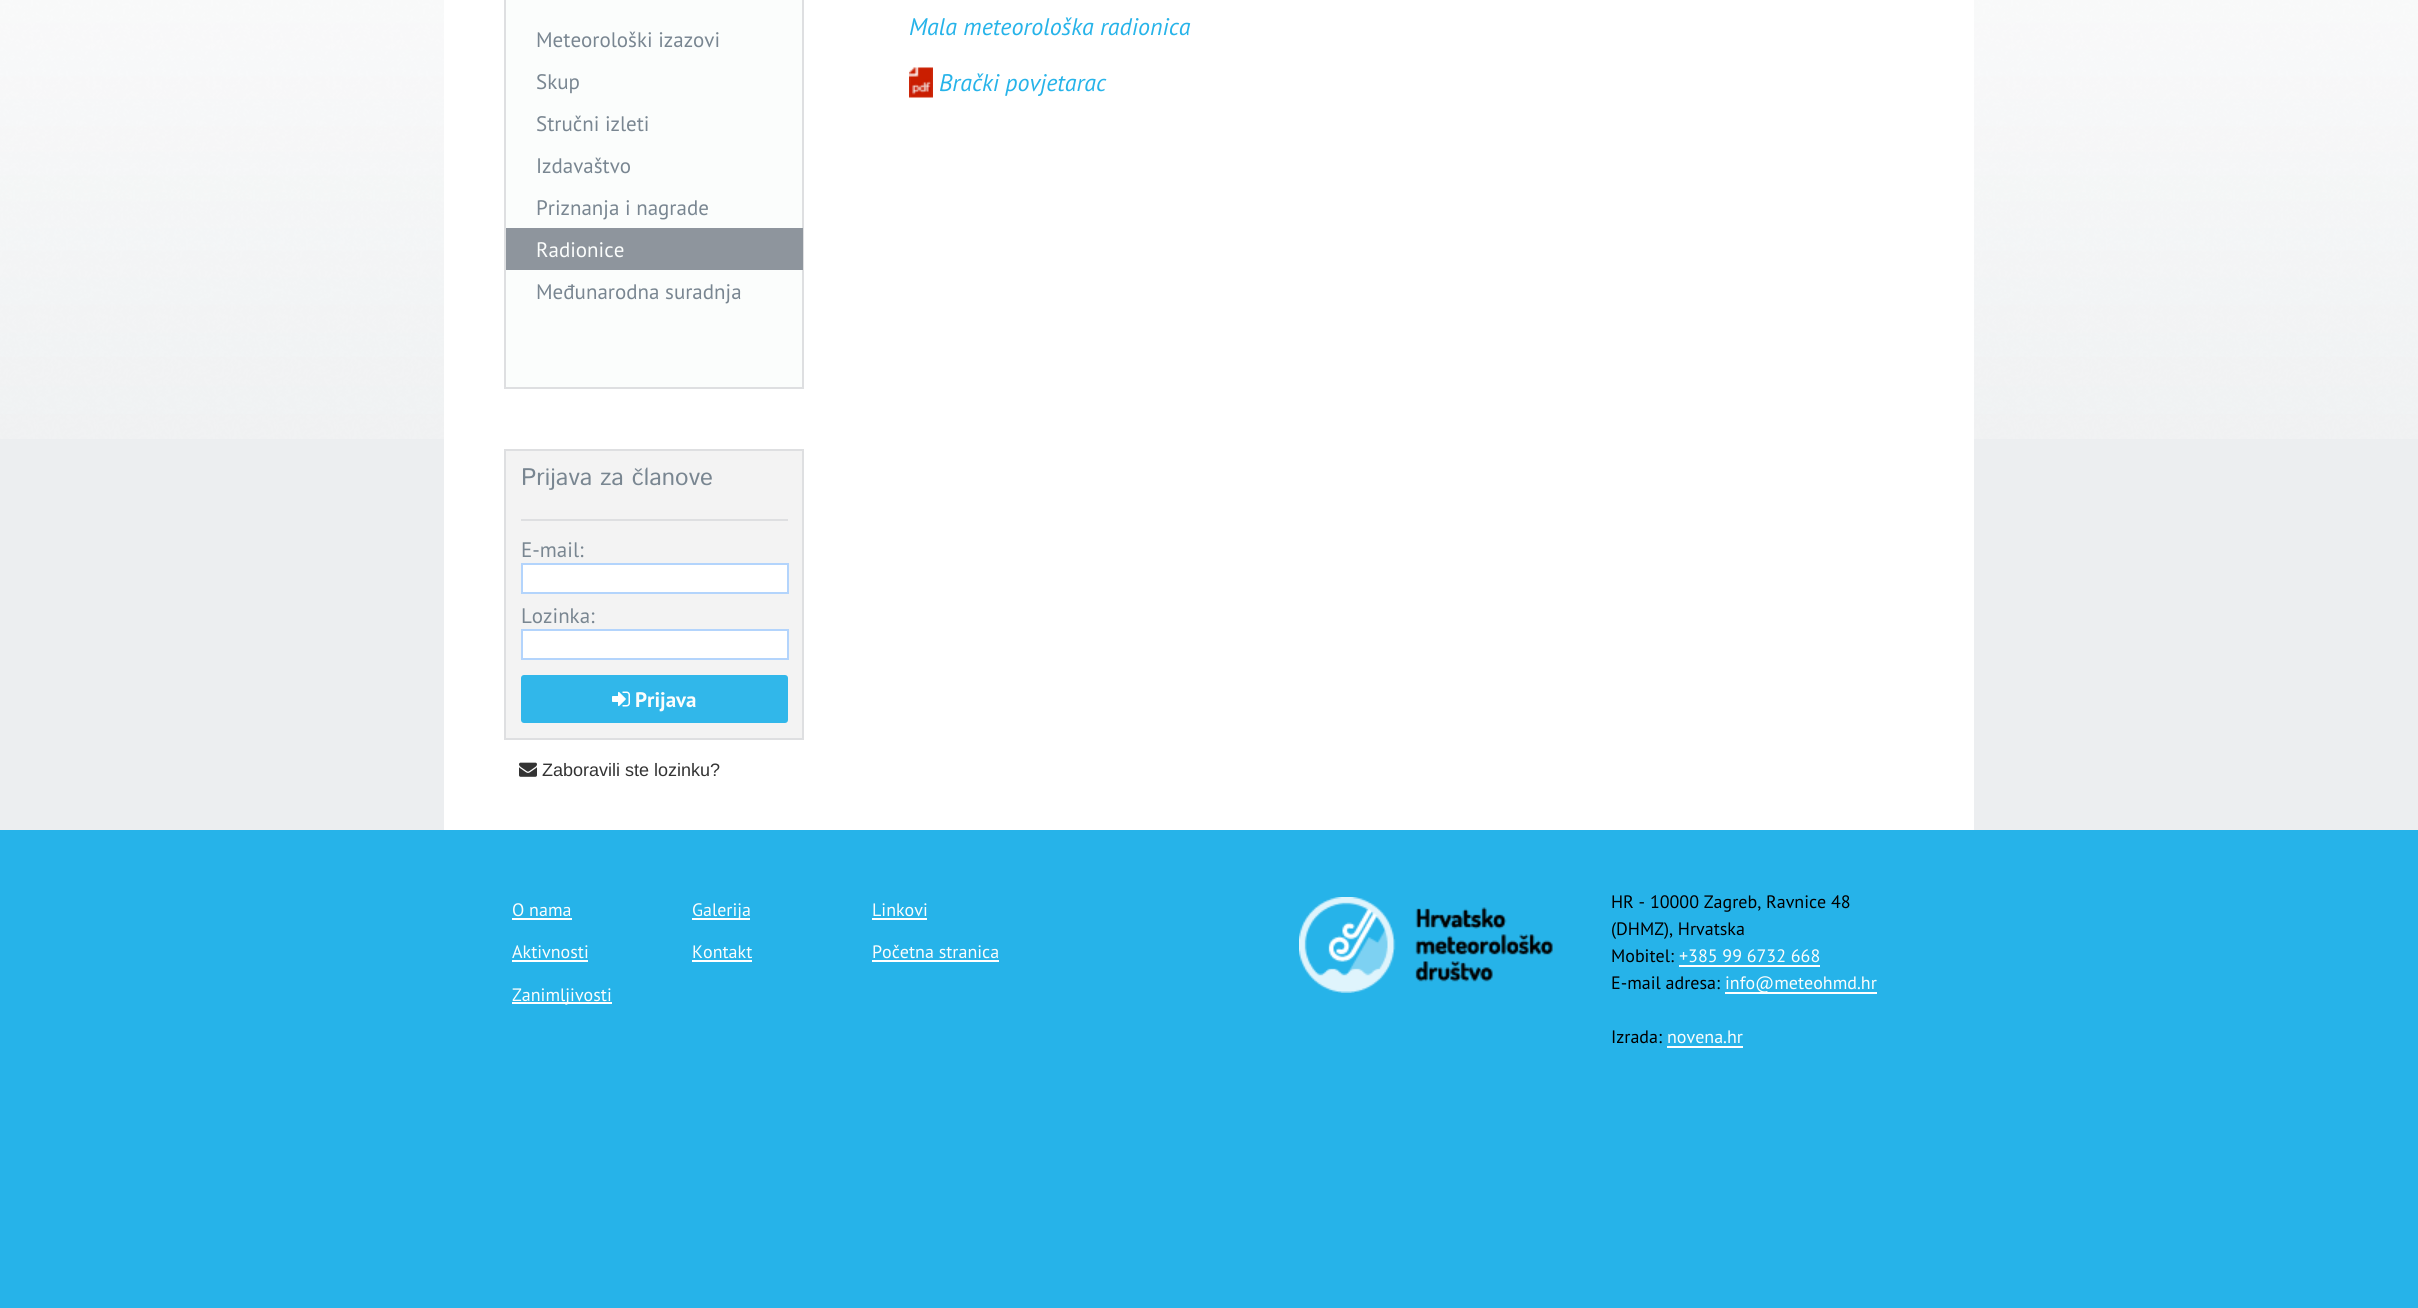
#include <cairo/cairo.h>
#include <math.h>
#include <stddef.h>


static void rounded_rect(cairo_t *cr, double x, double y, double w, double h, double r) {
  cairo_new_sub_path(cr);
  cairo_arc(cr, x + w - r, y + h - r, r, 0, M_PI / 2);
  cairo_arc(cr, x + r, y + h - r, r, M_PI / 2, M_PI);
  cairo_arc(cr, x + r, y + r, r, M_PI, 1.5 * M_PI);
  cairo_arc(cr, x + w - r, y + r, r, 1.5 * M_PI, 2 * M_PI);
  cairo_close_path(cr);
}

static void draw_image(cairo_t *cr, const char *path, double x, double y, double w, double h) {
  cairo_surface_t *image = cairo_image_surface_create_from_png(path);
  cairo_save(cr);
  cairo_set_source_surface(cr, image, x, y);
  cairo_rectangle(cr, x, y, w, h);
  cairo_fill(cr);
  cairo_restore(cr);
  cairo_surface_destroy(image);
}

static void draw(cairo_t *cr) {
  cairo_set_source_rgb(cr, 236 / 255.0, 238 / 255.0, 240 / 255.0);
  cairo_paint(cr);
  draw_image(cr, "images/1.png", 0, 0, 2418, 439);
  cairo_set_source_rgb(cr, 1, 1, 1);
  cairo_rectangle(cr, 444, 0, 1530, 830);
  cairo_fill(cr);
  cairo_set_source_rgb(cr, 251 / 255.0, 253 / 255.0, 252 / 255.0);
  cairo_rectangle(cr, 505, -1, 298, 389);
  cairo_fill_preserve(cr);
  cairo_set_source_rgb(cr, 222 / 255.0, 223 / 255.0, 225 / 255.0);
  cairo_stroke(cr);
  cairo_set_source_rgb(cr, 142 / 255.0, 149 / 255.0, 157 / 255.0);
  cairo_rectangle(cr, 506, 228, 297, 42);
  cairo_fill(cr);
  cairo_set_source_rgb(cr, 243 / 255.0, 243 / 255.0, 243 / 255.0);
  cairo_rectangle(cr, 505, 450, 298, 289);
  cairo_fill_preserve(cr);
  cairo_set_source_rgb(cr, 222 / 255.0, 223 / 255.0, 225 / 255.0);
  cairo_stroke(cr);
  cairo_rectangle(cr, 521, 519, 267, 2);
  cairo_fill(cr);
  cairo_set_source_rgb(cr, 1, 1, 1);
  cairo_rectangle(cr, 522, 564, 266, 29);
  cairo_fill_preserve(cr);
  cairo_set_source_rgb(cr, 179 / 255.0, 212 / 255.0, 252 / 255.0);
  cairo_stroke(cr);
  cairo_set_source_rgb(cr, 1, 1, 1);
  cairo_rectangle(cr, 522, 630, 266, 29);
  cairo_fill_preserve(cr);
  cairo_set_source_rgb(cr, 179 / 255.0, 212 / 255.0, 252 / 255.0);
  cairo_stroke(cr);
  cairo_set_source_rgb(cr, 49 / 255.0, 183 / 255.0, 234 / 255.0);
  rounded_rect(cr, 521, 675, 267, 48, 3);
  cairo_fill(cr);
  draw_image(cr, "images/2.png", 612, 691, 18, 16);
  draw_image(cr, "images/3.png", 519, 762, 18, 15);
  draw_image(cr, "images/4.png", 909, 67, 24, 31);
  cairo_set_source_rgb(cr, 38 / 255.0, 179 / 255.0, 233 / 255.0);
  cairo_rectangle(cr, 0, 830, 2418, 478);
  cairo_fill(cr);
  cairo_set_source_rgb(cr, 1, 1, 1);
  cairo_rectangle(cr, 512, 918, 60, 2);
  cairo_fill(cr);
  cairo_rectangle(cr, 692, 918, 58, 2);
  cairo_fill(cr);
  cairo_rectangle(cr, 872, 918, 55, 2);
  cairo_fill(cr);
  cairo_rectangle(cr, 512, 960, 76, 2);
  cairo_fill(cr);
  cairo_rectangle(cr, 692, 960, 60, 2);
  cairo_fill(cr);
  cairo_rectangle(cr, 872, 960, 127, 2);
  cairo_fill(cr);
  cairo_rectangle(cr, 512, 1002, 100, 2);
  cairo_fill(cr);
  draw_image(cr, "images/5.png", 1299, 897, 254, 96);
  cairo_rectangle(cr, 1679, 965, 141, 2);
  cairo_fill(cr);
  cairo_rectangle(cr, 1725, 992, 152, 2);
  cairo_fill(cr);
  cairo_rectangle(cr, 1667, 1046, 76, 2);
  cairo_fill(cr);
  cairo_select_font_face(cr, "PT Sans", CAIRO_FONT_SLANT_NORMAL, CAIRO_FONT_WEIGHT_NORMAL);
  cairo_set_font_size(cr, 21);
  cairo_set_source_rgb(cr, 121 / 255.0, 134 / 255.0, 145 / 255.0);
  cairo_move_to(cr, 536, 47);
  cairo_show_text(cr, "Meteorološki izazovi");
  cairo_move_to(cr, 536, 89);
  cairo_show_text(cr, "Skup");
  cairo_move_to(cr, 536, 131);
  cairo_show_text(cr, "Stručni izleti");
  cairo_move_to(cr, 536, 173);
  cairo_show_text(cr, "Izdavaštvo");
  cairo_move_to(cr, 536, 215);
  cairo_show_text(cr, "Priznanja i nagrade");
  cairo_set_source_rgb(cr, 251 / 255.0, 253 / 255.0, 252 / 255.0);
  cairo_move_to(cr, 536, 257);
  cairo_show_text(cr, "Radionice");
  cairo_set_source_rgb(cr, 121 / 255.0, 134 / 255.0, 145 / 255.0);
  cairo_move_to(cr, 536, 299);
  cairo_show_text(cr, "Međunarodna suradnja");
  cairo_select_font_face(cr, "Istok Web", CAIRO_FONT_SLANT_NORMAL, CAIRO_FONT_WEIGHT_NORMAL);
  cairo_set_font_size(cr, 24);
  cairo_move_to(cr, 521, 485);
  cairo_show_text(cr, "Prijava za članove");
  cairo_select_font_face(cr, "PT Sans", CAIRO_FONT_SLANT_NORMAL, CAIRO_FONT_WEIGHT_NORMAL);
  cairo_set_font_size(cr, 21);
  cairo_move_to(cr, 521, 557);
  cairo_show_text(cr, "E-mail:");
  cairo_move_to(cr, 521, 623);
  cairo_show_text(cr, "Lozinka:");
  cairo_select_font_face(cr, "PT Sans", CAIRO_FONT_SLANT_NORMAL, CAIRO_FONT_WEIGHT_BOLD);
  cairo_set_source_rgb(cr, 251 / 255.0, 253 / 255.0, 252 / 255.0);
  cairo_move_to(cr, 635, 707);
  cairo_show_text(cr, "Prijava");
  cairo_select_font_face(cr, "Liberation Sans", CAIRO_FONT_SLANT_NORMAL, CAIRO_FONT_WEIGHT_NORMAL);
  cairo_set_font_size(cr, 18);
  cairo_set_source_rgb(cr, 51 / 255.0, 51 / 255.0, 51 / 255.0);
  cairo_move_to(cr, 542, 776);
  cairo_show_text(cr, "Zaboravili ste lozinku?");
  cairo_select_font_face(cr, "PT Sans", CAIRO_FONT_SLANT_ITALIC, CAIRO_FONT_WEIGHT_NORMAL);
  cairo_set_font_size(cr, 24);
  cairo_set_source_rgb(cr, 38 / 255.0, 179 / 255.0, 233 / 255.0);
  cairo_move_to(cr, 909, 35);
  cairo_show_text(cr, "Mala meteorološka radionica");
  cairo_move_to(cr, 939, 91);
  cairo_show_text(cr, "Brački povjetarac");
  cairo_select_font_face(cr, "PT Sans", CAIRO_FONT_SLANT_NORMAL, CAIRO_FONT_WEIGHT_NORMAL);
  cairo_set_font_size(cr, 18);
  cairo_set_source_rgb(cr, 251 / 255.0, 253 / 255.0, 252 / 255.0);
  cairo_move_to(cr, 512, 916);
  cairo_show_text(cr, "O nama");
  cairo_move_to(cr, 692, 916);
  cairo_show_text(cr, "Galerija");
  cairo_move_to(cr, 872, 916);
  cairo_show_text(cr, "Linkovi");
  cairo_move_to(cr, 512, 958);
  cairo_show_text(cr, "Aktivnosti");
  cairo_move_to(cr, 692, 958);
  cairo_show_text(cr, "Kontakt");
  cairo_move_to(cr, 872, 958);
  cairo_show_text(cr, "Početna stranica");
  cairo_move_to(cr, 512, 1001);
  cairo_show_text(cr, "Zanimljivosti");
  cairo_set_source_rgb(cr, 0, 0, 0);
  cairo_move_to(cr, 1611, 908);
  cairo_show_text(cr, "HR - 10000 Zagreb, Ravnice 48");
  cairo_move_to(cr, 1611, 935);
  cairo_show_text(cr, "(DHMZ), Hrvatska");
  cairo_move_to(cr, 1611, 962);
  cairo_show_text(cr, "Mobitel:");
  cairo_set_source_rgb(cr, 251 / 255.0, 253 / 255.0, 252 / 255.0);
  cairo_move_to(cr, 1679, 962);
  cairo_show_text(cr, "+385 99 6732 668");
  cairo_set_source_rgb(cr, 0, 0, 0);
  cairo_move_to(cr, 1611, 989);
  cairo_show_text(cr, "E-mail adresa:");
  cairo_set_source_rgb(cr, 251 / 255.0, 253 / 255.0, 252 / 255.0);
  cairo_move_to(cr, 1725, 989);
  cairo_show_text(cr, "info@meteohmd.hr");
  cairo_set_source_rgb(cr, 0, 0, 0);
  cairo_move_to(cr, 1611, 1043);
  cairo_show_text(cr, "Izrada:");
  cairo_set_source_rgb(cr, 251 / 255.0, 253 / 255.0, 252 / 255.0);
  cairo_move_to(cr, 1667, 1043);
  cairo_show_text(cr, "novena.hr");
}

int main(void) {
  cairo_surface_t *surface = cairo_image_surface_create(CAIRO_FORMAT_RGB24, 2418, 1308);
  cairo_t *cr = cairo_create(surface);
  cairo_font_options_t *options = cairo_font_options_create();
  cairo_font_options_set_hint_metrics(options, CAIRO_HINT_METRICS_OFF);
  cairo_font_options_set_hint_style(options, CAIRO_HINT_STYLE_NONE);
  cairo_set_font_options(cr, options);
  cairo_set_miter_limit(cr, 4);
  draw(cr);
  cairo_surface_write_to_png(surface, "out.png");
  cairo_font_options_destroy(options);
  cairo_destroy(cr);
  cairo_surface_destroy(surface);
  return 0;
}
